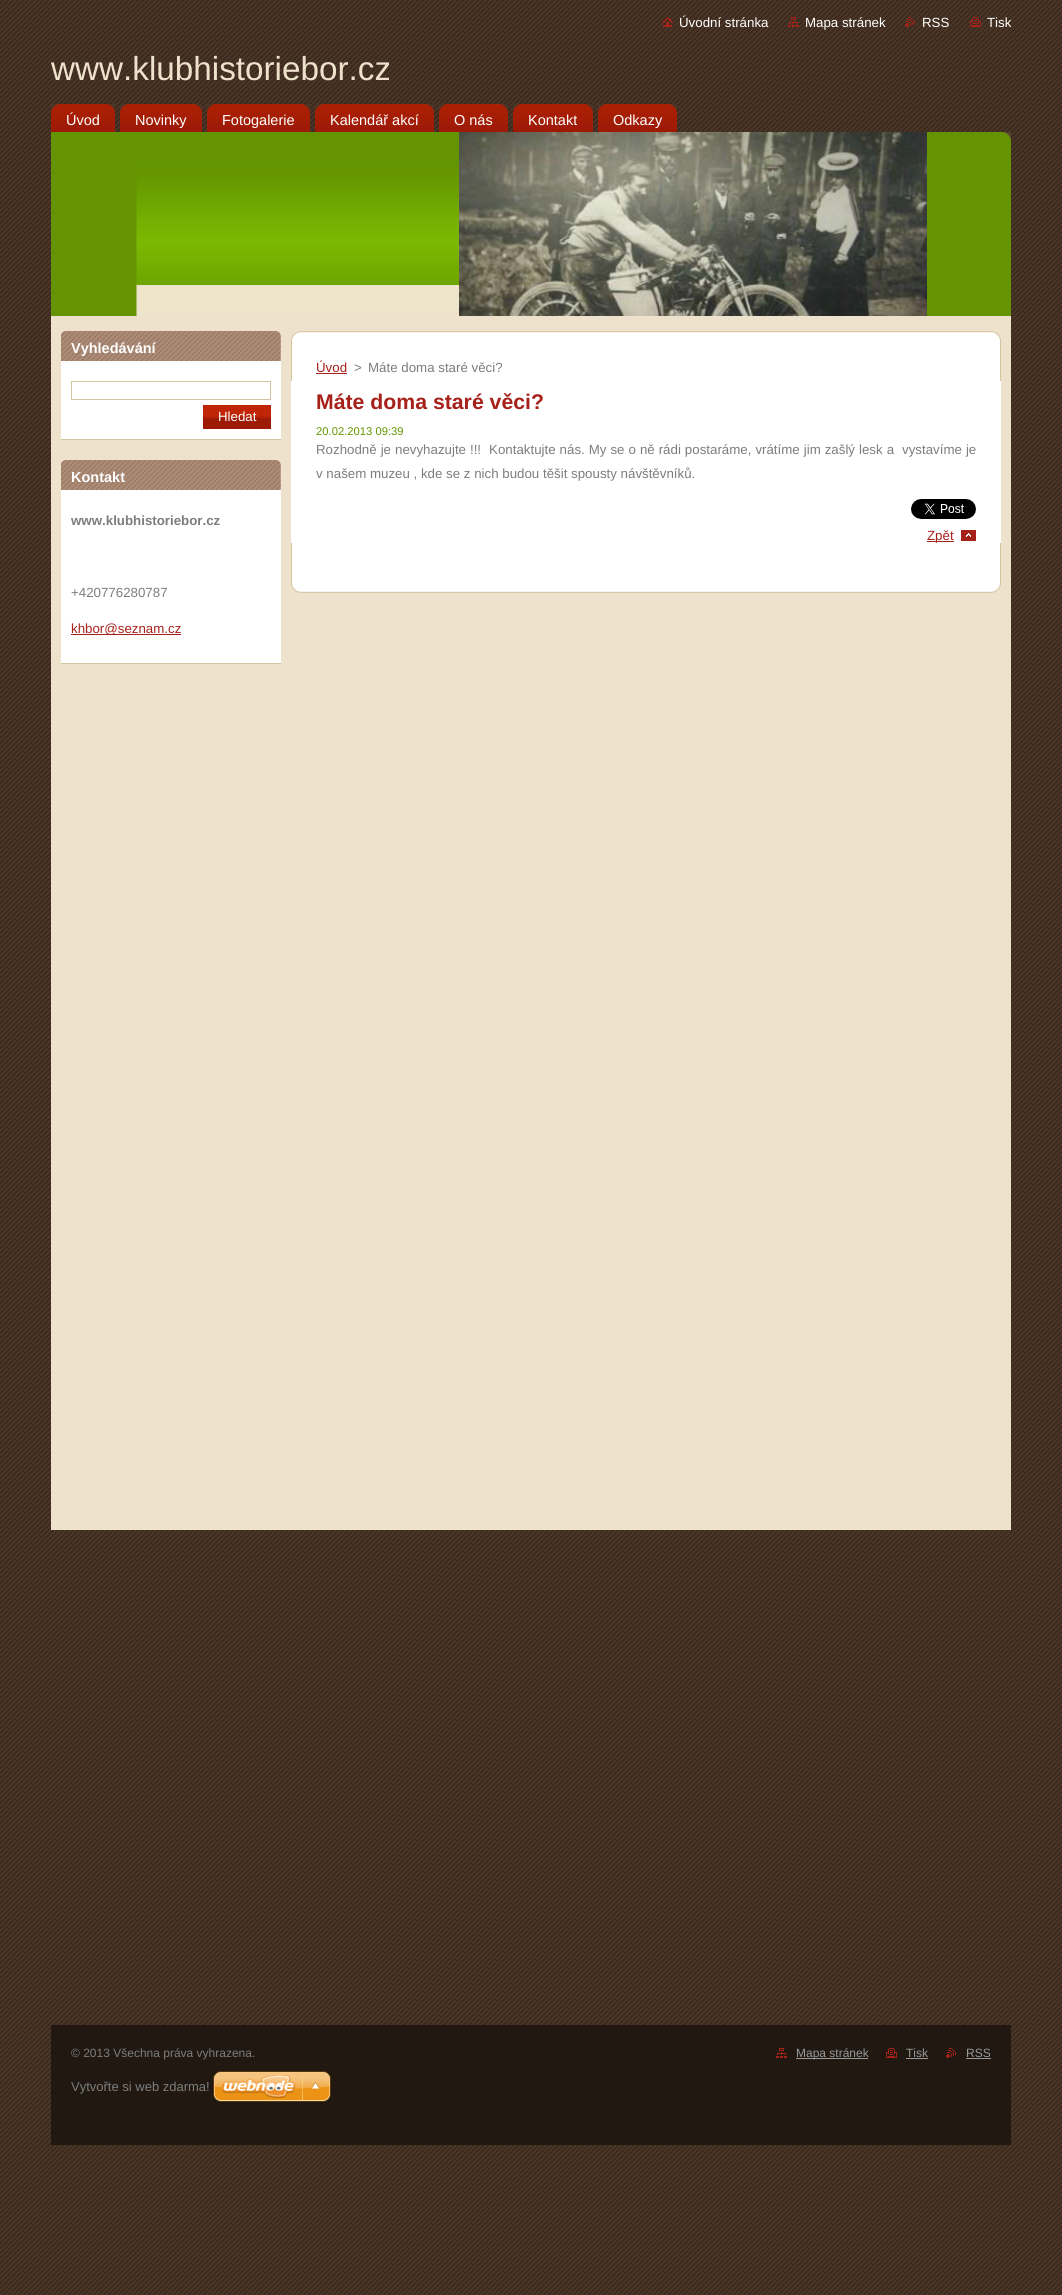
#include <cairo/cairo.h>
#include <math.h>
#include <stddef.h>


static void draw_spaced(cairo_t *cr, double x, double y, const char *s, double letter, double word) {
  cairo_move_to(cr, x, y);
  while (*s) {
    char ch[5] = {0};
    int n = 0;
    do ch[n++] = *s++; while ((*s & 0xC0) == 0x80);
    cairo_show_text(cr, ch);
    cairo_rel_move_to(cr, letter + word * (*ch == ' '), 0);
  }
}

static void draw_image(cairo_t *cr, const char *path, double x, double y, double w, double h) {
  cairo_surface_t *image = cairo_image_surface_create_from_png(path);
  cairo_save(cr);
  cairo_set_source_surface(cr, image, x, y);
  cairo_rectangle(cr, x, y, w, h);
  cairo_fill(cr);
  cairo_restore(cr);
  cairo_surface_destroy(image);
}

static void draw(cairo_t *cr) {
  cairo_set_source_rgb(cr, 1, 1, 1);
  cairo_paint(cr);
  draw_image(cr, "images/1.png", 0, 0, 1062, 2295);
  cairo_set_source_rgb(cr, 238 / 255.0, 226 / 255.0, 204 / 255.0);
  cairo_rectangle(cr, 51, 316, 960, 1214);
  cairo_fill(cr);
  draw_image(cr, "images/2.png", 662, 17, 11, 10);
  draw_image(cr, "images/3.png", 788, 17, 11, 10);
  draw_image(cr, "images/4.png", 905, 17, 10, 10);
  draw_image(cr, "images/5.png", 970, 17, 11, 10);
  draw_image(cr, "images/6.png", 51, 104, 64, 28);
  draw_image(cr, "images/7.png", 51, 104, 8, 8);
  draw_image(cr, "images/8.png", 107, 104, 8, 8);
  draw_image(cr, "images/9.png", 120, 104, 82, 28);
  draw_image(cr, "images/7.png", 120, 104, 8, 8);
  draw_image(cr, "images/8.png", 194, 104, 8, 8);
  draw_image(cr, "images/10.png", 207, 104, 103, 28);
  draw_image(cr, "images/7.png", 207, 104, 8, 8);
  draw_image(cr, "images/8.png", 302, 104, 8, 8);
  draw_image(cr, "images/11.png", 315, 104, 119, 28);
  draw_image(cr, "images/7.png", 315, 104, 8, 8);
  draw_image(cr, "images/8.png", 426, 104, 8, 8);
  draw_image(cr, "images/12.png", 439, 104, 69, 28);
  draw_image(cr, "images/7.png", 439, 104, 8, 8);
  draw_image(cr, "images/8.png", 500, 104, 8, 8);
  draw_image(cr, "images/13.png", 513, 104, 80, 28);
  draw_image(cr, "images/7.png", 513, 104, 8, 8);
  draw_image(cr, "images/8.png", 585, 104, 8, 8);
  draw_image(cr, "images/14.png", 598, 104, 79, 28);
  draw_image(cr, "images/7.png", 598, 104, 8, 8);
  draw_image(cr, "images/8.png", 669, 104, 8, 8);
  cairo_set_source_rgb(cr, 100 / 255.0, 148 / 255.0, 2 / 255.0);
  cairo_rectangle(cr, 51, 132, 960, 184);
  cairo_fill(cr);
  draw_image(cr, "images/15.png", 136, 132, 791, 184);
  draw_image(cr, "images/16.png", 1003, 132, 8, 8);
  cairo_set_source_rgb(cr, 1, 1, 1);
  cairo_rectangle(cr, 61, 361, 220, 78);
  cairo_fill(cr);
  cairo_set_source_rgb(cr, 214 / 255.0, 195 / 255.0, 161 / 255.0);
  cairo_rectangle(cr, 61, 439, 220, 1);
  cairo_fill(cr);
  draw_image(cr, "images/17.png", 61, 331, 220, 30);
  cairo_rectangle(cr, 71.5, 381.5, 199, 18);
  cairo_set_line_width(cr, 1);
  cairo_stroke(cr);
  draw_image(cr, "images/18.png", 203, 405, 68, 24);
  cairo_set_source_rgb(cr, 1, 1, 1);
  cairo_rectangle(cr, 61, 490, 220, 173);
  cairo_fill(cr);
  cairo_set_source_rgb(cr, 214 / 255.0, 195 / 255.0, 161 / 255.0);
  cairo_rectangle(cr, 61, 663, 220, 1);
  cairo_fill(cr);
  draw_image(cr, "images/17.png", 61, 460, 220, 30);
  cairo_set_source_rgb(cr, 166 / 255.0, 33 / 255.0, 26 / 255.0);
  cairo_rectangle(cr, 71, 634, 110, 1);
  cairo_fill(cr);
  draw_image(cr, "images/19.png", 291, 331, 710, 50);
  draw_image(cr, "images/20.png", 291, 543, 710, 50);
  cairo_set_source_rgb(cr, 1, 1, 1);
  cairo_rectangle(cr, 291, 381, 710, 162);
  cairo_fill(cr);
  cairo_set_source_rgb(cr, 166 / 255.0, 33 / 255.0, 26 / 255.0);
  cairo_rectangle(cr, 316, 373, 31, 1);
  cairo_fill(cr);
  draw_image(cr, "images/21.png", 911, 499, 65, 20);
  draw_image(cr, "images/22.png", 961, 530, 15, 11);
  cairo_rectangle(cr, 927, 541, 27, 1);
  cairo_fill(cr);
  cairo_set_source_rgb(cr, 32 / 255.0, 24 / 255.0, 17 / 255.0);
  cairo_rectangle(cr, 51, 2025, 960, 120);
  cairo_fill(cr);
  draw_image(cr, "images/23.png", 776, 2048, 11, 10);
  cairo_set_source_rgb(cr, 153 / 255.0, 153 / 255.0, 153 / 255.0);
  cairo_rectangle(cr, 796, 2058, 72, 1);
  cairo_fill(cr);
  draw_image(cr, "images/24.png", 886, 2048, 11, 10);
  cairo_rectangle(cr, 906, 2058, 22, 1);
  cairo_fill(cr);
  draw_image(cr, "images/25.png", 946, 2048, 10, 10);
  cairo_rectangle(cr, 966, 2058, 25, 1);
  cairo_fill(cr);
  draw_image(cr, "images/26.png", 213, 2071, 118, 31);
  cairo_select_font_face(cr, "Liberation Sans", CAIRO_FONT_SLANT_NORMAL, CAIRO_FONT_WEIGHT_NORMAL);
  cairo_set_font_size(cr, 13.3);
  cairo_set_source_rgb(cr, 1, 1, 1);
  cairo_move_to(cr, 679, 27);
  cairo_show_text(cr, "Úvodní stránka");
  cairo_move_to(cr, 805, 27);
  cairo_show_text(cr, "Mapa stránek");
  cairo_move_to(cr, 922, 27);
  cairo_show_text(cr, "RSS");
  cairo_move_to(cr, 987, 27);
  cairo_show_text(cr, "Tisk");
  cairo_set_font_size(cr, 33.25);
  cairo_set_source_rgb(cr, 238 / 255.0, 226 / 255.0, 204 / 255.0);
  cairo_move_to(cr, 51, 80);
  cairo_show_text(cr, "www.klubhistoriebor.cz");
  cairo_set_font_size(cr, 14.5);
  cairo_set_source_rgb(cr, 1, 1, 1);
  cairo_move_to(cr, 66, 125);
  cairo_show_text(cr, "Úvod");
  cairo_move_to(cr, 135, 125);
  cairo_show_text(cr, "Novinky");
  cairo_move_to(cr, 222, 125);
  cairo_show_text(cr, "Fotogalerie");
  cairo_move_to(cr, 330, 125);
  cairo_show_text(cr, "Kalendář akcí");
  cairo_move_to(cr, 454, 125);
  cairo_show_text(cr, "O nás");
  cairo_move_to(cr, 528, 125);
  cairo_show_text(cr, "Kontakt");
  cairo_move_to(cr, 613, 125);
  cairo_show_text(cr, "Odkazy");
  cairo_select_font_face(cr, "Liberation Sans", CAIRO_FONT_SLANT_NORMAL, CAIRO_FONT_WEIGHT_BOLD);
  cairo_move_to(cr, 71, 353);
  cairo_show_text(cr, "Vyhledávání");
  cairo_select_font_face(cr, "Liberation Sans", CAIRO_FONT_SLANT_NORMAL, CAIRO_FONT_WEIGHT_NORMAL);
  cairo_set_font_size(cr, 13.3);
  cairo_move_to(cr, 218, 421);
  cairo_show_text(cr, "Hledat");
  cairo_select_font_face(cr, "Liberation Sans", CAIRO_FONT_SLANT_NORMAL, CAIRO_FONT_WEIGHT_BOLD);
  cairo_set_font_size(cr, 14.5);
  cairo_move_to(cr, 71, 482);
  cairo_show_text(cr, "Kontakt");
  cairo_set_font_size(cr, 13.3);
  cairo_set_source_rgb(cr, 125 / 255.0, 125 / 255.0, 125 / 255.0);
  cairo_move_to(cr, 71, 525);
  cairo_show_text(cr, "www.klubhistoriebor.cz");
  cairo_select_font_face(cr, "Liberation Sans", CAIRO_FONT_SLANT_NORMAL, CAIRO_FONT_WEIGHT_NORMAL);
  cairo_move_to(cr, 71, 597);
  cairo_show_text(cr, "+420776280787");
  cairo_set_source_rgb(cr, 166 / 255.0, 33 / 255.0, 26 / 255.0);
  cairo_move_to(cr, 71, 633);
  cairo_show_text(cr, "khbor@seznam.cz");
  cairo_move_to(cr, 316, 372);
  cairo_show_text(cr, "Úvod");
  cairo_set_source_rgb(cr, 125 / 255.0, 125 / 255.0, 125 / 255.0);
  cairo_move_to(cr, 354, 372);
  cairo_show_text(cr, ">");
  cairo_move_to(cr, 368, 372);
  cairo_show_text(cr, "Máte doma staré věci?");
  cairo_select_font_face(cr, "Liberation Sans", CAIRO_FONT_SLANT_NORMAL, CAIRO_FONT_WEIGHT_BOLD);
  cairo_set_font_size(cr, 21.25);
  cairo_set_source_rgb(cr, 166 / 255.0, 33 / 255.0, 26 / 255.0);
  cairo_move_to(cr, 316, 409);
  cairo_show_text(cr, "Máte doma staré věci?");
  cairo_select_font_face(cr, "Liberation Sans", CAIRO_FONT_SLANT_NORMAL, CAIRO_FONT_WEIGHT_NORMAL);
  cairo_set_font_size(cr, 11.25);
  cairo_set_source_rgb(cr, 100 / 255.0, 148 / 255.0, 2 / 255.0);
  cairo_move_to(cr, 316, 435);
  cairo_show_text(cr, "20.02.2013 09:39");
  cairo_set_font_size(cr, 13.3);
  cairo_set_source_rgb(cr, 125 / 255.0, 125 / 255.0, 125 / 255.0);
  draw_spaced(cr, 316, 454, "Rozhodně je nevyhazujte !!!  Kontaktujte nás. My se o ně rádi postaráme, vrátíme jim zašlý lesk a  vystavíme je", 0, 0.3);
  cairo_move_to(cr, 316, 478);
  cairo_show_text(cr, "v našem muzeu , kde se z nich budou těšit spousty návštěvníků.");
  cairo_set_source_rgb(cr, 166 / 255.0, 33 / 255.0, 26 / 255.0);
  cairo_move_to(cr, 927, 540);
  cairo_show_text(cr, "Zpět");
  cairo_set_font_size(cr, 12);
  cairo_set_source_rgb(cr, 125 / 255.0, 125 / 255.0, 125 / 255.0);
  cairo_move_to(cr, 71, 2057);
  cairo_show_text(cr, "© 2013 Všechna práva vyhrazena.");
  cairo_set_source_rgb(cr, 153 / 255.0, 153 / 255.0, 153 / 255.0);
  cairo_move_to(cr, 796, 2057);
  cairo_show_text(cr, "Mapa stránek");
  cairo_move_to(cr, 906, 2057);
  cairo_show_text(cr, "Tisk");
  cairo_move_to(cr, 966, 2057);
  cairo_show_text(cr, "RSS");
  cairo_set_font_size(cr, 13);
  cairo_set_source_rgb(cr, 125 / 255.0, 125 / 255.0, 125 / 255.0);
  cairo_move_to(cr, 71, 2091);
  cairo_show_text(cr, "Vytvořte si web zdarma!");
}

int main(void) {
  cairo_surface_t *surface = cairo_image_surface_create(CAIRO_FORMAT_RGB24, 1062, 2295);
  cairo_t *cr = cairo_create(surface);
  cairo_font_options_t *options = cairo_font_options_create();
  cairo_font_options_set_hint_metrics(options, CAIRO_HINT_METRICS_OFF);
  cairo_font_options_set_hint_style(options, CAIRO_HINT_STYLE_NONE);
  cairo_set_font_options(cr, options);
  cairo_set_miter_limit(cr, 4);
  draw(cr);
  cairo_surface_write_to_png(surface, "out.png");
  cairo_font_options_destroy(options);
  cairo_destroy(cr);
  cairo_surface_destroy(surface);
  return 0;
}
